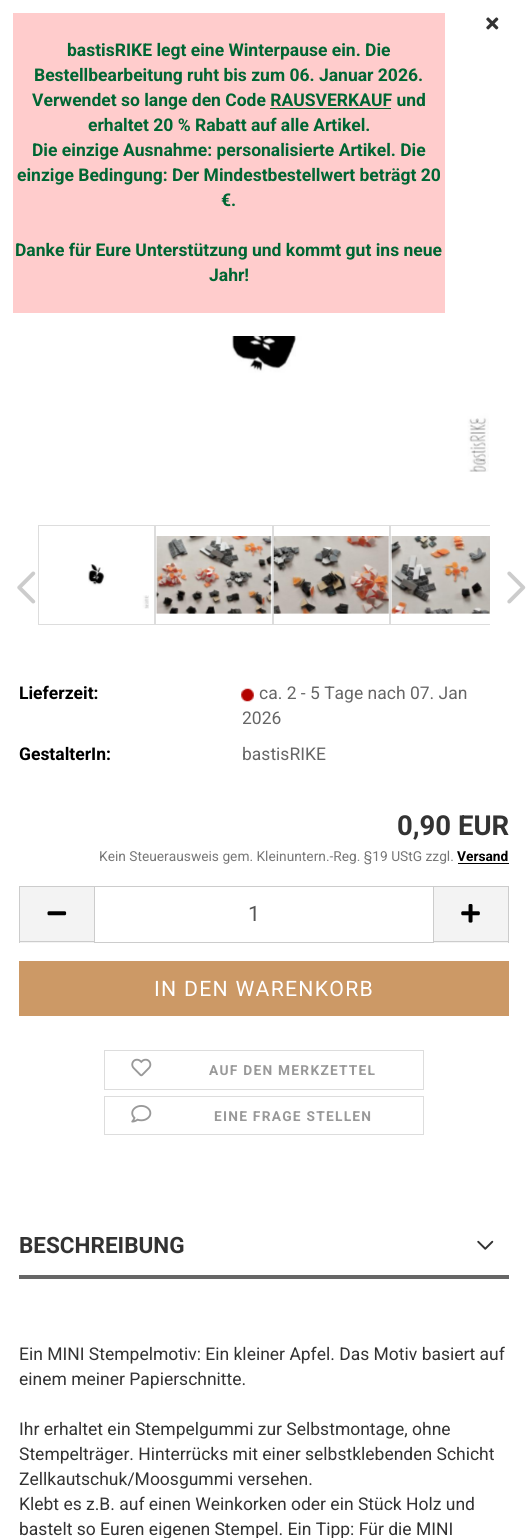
#include <cairo/cairo.h>
#include <math.h>
#include <stddef.h>


static void draw_spaced(cairo_t *cr, double x, double y, const char *s, double letter, double word) {
  cairo_move_to(cr, x, y);
  while (*s) {
    char ch[5] = {0};
    int n = 0;
    do ch[n++] = *s++; while ((*s & 0xC0) == 0x80);
    cairo_show_text(cr, ch);
    cairo_rel_move_to(cr, letter + word * (*ch == ' '), 0);
  }
}

static void draw_image(cairo_t *cr, const char *path, double x, double y, double w, double h) {
  cairo_surface_t *image = cairo_image_surface_create_from_png(path);
  cairo_save(cr);
  cairo_set_source_surface(cr, image, x, y);
  cairo_rectangle(cr, x, y, w, h);
  cairo_fill(cr);
  cairo_restore(cr);
  cairo_surface_destroy(image);
}

static void draw(cairo_t *cr) {
  cairo_set_source_rgb(cr, 1, 1, 1);
  cairo_paint(cr);
  draw_image(cr, "images/1.png", 486, 17, 13, 13);
  cairo_set_source_rgb(cr, 1, 204 / 255.0, 204 / 255.0);
  cairo_rectangle(cr, 13, 13, 432, 300);
  cairo_fill(cr);
  cairo_set_source_rgb(cr, 0, 102 / 255.0, 51 / 255.0);
  cairo_rectangle(cr, 270, 108, 121, 1);
  cairo_fill(cr);
  draw_image(cr, "images/2.png", 231, 336, 258, 136);
  draw_image(cr, "images/3.png", 17, 571, 19, 33);
  cairo_rectangle(cr, 38.5, 525.5, 116, 99);
  cairo_set_source_rgb(cr, 221 / 255.0, 221 / 255.0, 221 / 255.0);
  cairo_set_line_width(cr, 1);
  cairo_stroke(cr);
  draw_image(cr, "images/4.png", 88, 564, 61, 45);
  cairo_rectangle(cr, 155.5, 525.5, 117, 99);
  cairo_stroke(cr);
  draw_image(cr, "images/5.png", 155, 536, 117, 78);
  cairo_rectangle(cr, 273.5, 525.5, 116, 99);
  cairo_stroke(cr);
  draw_image(cr, "images/6.png", 273, 536, 116, 78);
  cairo_save(cr);
  cairo_rectangle(cr, 38, 525, 452, 100);
  cairo_clip(cr);
  cairo_rectangle(cr, 390.5, 525.5, 117, 99);
  cairo_stroke(cr);
  cairo_restore(cr);
  draw_image(cr, "images/7.png", 390, 536, 100, 78);
  draw_image(cr, "images/8.png", 507, 571, 19, 33);
  draw_image(cr, "images/9.png", 241, 688, 13, 14);
  cairo_set_source_rgb(cr, 0, 0, 0);
  cairo_rectangle(cr, 458, 863, 51, 1);
  cairo_fill(cr);
  cairo_set_source_rgb(cr, 243 / 255.0, 243 / 255.0, 243 / 255.0);
  cairo_rectangle(cr, 20, 887, 74, 56);
  cairo_fill(cr);
  cairo_set_source_rgb(cr, 204 / 255.0, 204 / 255.0, 204 / 255.0);
  cairo_rectangle(cr, 19, 886, 75, 1);
  cairo_fill(cr);
  cairo_rectangle(cr, 19, 941, 75, 1);
  cairo_fill(cr);
  cairo_rectangle(cr, 19, 886, 1, 57);
  cairo_fill(cr);
  draw_image(cr, "images/10.png", 47, 911, 20, 5);
  cairo_rectangle(cr, 94.5, 886.5, 339, 56);
  cairo_stroke(cr);
  cairo_set_source_rgb(cr, 243 / 255.0, 243 / 255.0, 243 / 255.0);
  cairo_rectangle(cr, 434, 887, 74, 56);
  cairo_fill(cr);
  cairo_set_source_rgb(cr, 204 / 255.0, 204 / 255.0, 204 / 255.0);
  cairo_rectangle(cr, 434, 886, 75, 1);
  cairo_fill(cr);
  cairo_rectangle(cr, 508, 886, 1, 57);
  cairo_fill(cr);
  cairo_rectangle(cr, 434, 941, 75, 1);
  cairo_fill(cr);
  draw_image(cr, "images/11.png", 461, 904, 19, 19);
  cairo_set_source_rgb(cr, 204 / 255.0, 153 / 255.0, 102 / 255.0);
  cairo_rectangle(cr, 19, 961, 490, 55);
  cairo_fill(cr);
  cairo_rectangle(cr, 104.5, 1050.5, 319, 39);
  cairo_set_source_rgb(cr, 221 / 255.0, 221 / 255.0, 221 / 255.0);
  cairo_stroke(cr);
  draw_image(cr, "images/12.png", 131, 1058, 21, 19);
  cairo_rectangle(cr, 104.5, 1096.5, 319, 38);
  cairo_stroke(cr);
  draw_image(cr, "images/13.png", 131, 1105, 21, 18);
  cairo_set_source_rgb(cr, 102 / 255.0, 102 / 255.0, 102 / 255.0);
  cairo_rectangle(cr, 19, 1275, 490, 4);
  cairo_fill(cr);
  draw_image(cr, "images/14.png", 477, 1240, 17, 10);
  cairo_select_font_face(cr, "Roboto", CAIRO_FONT_SLANT_NORMAL, CAIRO_FONT_WEIGHT_BOLD);
  cairo_set_font_size(cr, 17.5);
  cairo_set_source_rgb(cr, 0, 102 / 255.0, 51 / 255.0);
  cairo_move_to(cr, 67, 56);
  cairo_show_text(cr, "bastisRIKE legt eine Winterpause ein. Die");
  cairo_move_to(cr, 34, 81);
  cairo_show_text(cr, "Bestellbearbeitung ruht bis zum 06. Januar 2026.");
  cairo_move_to(cr, 32, 106);
  cairo_show_text(cr, "Verwendet so lange den Code RAUSVERKAUF und");
  cairo_move_to(cr, 88, 131);
  cairo_show_text(cr, "erhaltet 20 % Rabatt auf alle Artikel.");
  cairo_move_to(cr, 32, 156);
  cairo_show_text(cr, "Die einzige Ausnahme: personalisierte Artikel. Die");
  cairo_move_to(cr, 17, 181);
  cairo_show_text(cr, "einzige Bedingung: Der Mindestbestellwert beträgt 20");
  cairo_move_to(cr, 221, 206);
  cairo_show_text(cr, "€.");
  cairo_move_to(cr, 15, 256);
  cairo_show_text(cr, "Danke für Eure Unterstützung und kommt gut ins neue");
  cairo_move_to(cr, 209, 281);
  cairo_show_text(cr, "Jahr!");
  cairo_set_source_rgb(cr, 0, 0, 0);
  cairo_move_to(cr, 19, 699);
  cairo_show_text(cr, "Lieferzeit:");
  cairo_select_font_face(cr, "Roboto", CAIRO_FONT_SLANT_NORMAL, CAIRO_FONT_WEIGHT_NORMAL);
  cairo_set_source_rgb(cr, 102 / 255.0, 102 / 255.0, 102 / 255.0);
  cairo_move_to(cr, 259, 699);
  cairo_show_text(cr, "ca. 2 - 5 Tage nach 07. Jan");
  cairo_move_to(cr, 242, 724);
  cairo_show_text(cr, "2026");
  cairo_select_font_face(cr, "Roboto", CAIRO_FONT_SLANT_NORMAL, CAIRO_FONT_WEIGHT_BOLD);
  cairo_set_source_rgb(cr, 0, 0, 0);
  cairo_move_to(cr, 19, 760);
  cairo_show_text(cr, "GestalterIn:");
  cairo_select_font_face(cr, "Roboto", CAIRO_FONT_SLANT_NORMAL, CAIRO_FONT_WEIGHT_NORMAL);
  cairo_set_source_rgb(cr, 102 / 255.0, 102 / 255.0, 102 / 255.0);
  cairo_move_to(cr, 242, 760);
  cairo_show_text(cr, "bastisRIKE");
  cairo_select_font_face(cr, "Roboto", CAIRO_FONT_SLANT_NORMAL, CAIRO_FONT_WEIGHT_BOLD);
  cairo_set_font_size(cr, 27.5);
  cairo_set_source_rgb(cr, 51 / 255.0, 51 / 255.0, 51 / 255.0);
  cairo_move_to(cr, 397, 835);
  cairo_show_text(cr, "0,90 EUR");
  cairo_select_font_face(cr, "Roboto", CAIRO_FONT_SLANT_NORMAL, CAIRO_FONT_WEIGHT_NORMAL);
  cairo_set_font_size(cr, 13.75);
  cairo_set_source_rgb(cr, 119 / 255.0, 119 / 255.0, 119 / 255.0);
  cairo_move_to(cr, 99, 861);
  cairo_show_text(cr, "Kein Steuerausweis gem. Kleinuntern.-Reg. §19 UStG zzgl.");
  cairo_select_font_face(cr, "Roboto", CAIRO_FONT_SLANT_NORMAL, CAIRO_FONT_WEIGHT_BOLD);
  cairo_set_source_rgb(cr, 0, 0, 0);
  cairo_move_to(cr, 457, 861);
  cairo_show_text(cr, "Versand");
  cairo_select_font_face(cr, "Roboto", CAIRO_FONT_SLANT_NORMAL, CAIRO_FONT_WEIGHT_NORMAL);
  cairo_set_font_size(cr, 21.25);
  cairo_set_source_rgb(cr, 85 / 255.0, 85 / 255.0, 85 / 255.0);
  cairo_move_to(cr, 248, 921);
  cairo_show_text(cr, "1");
  cairo_set_source_rgb(cr, 1, 1, 1);
  draw_spaced(cr, 154, 996, "IN DEN WARENKORB", 1.25, 0);
  cairo_select_font_face(cr, "Roboto", CAIRO_FONT_SLANT_NORMAL, CAIRO_FONT_WEIGHT_BOLD);
  cairo_set_font_size(cr, 13.75);
  cairo_set_source_rgb(cr, 153 / 255.0, 153 / 255.0, 153 / 255.0);
  draw_spaced(cr, 209, 1075, "AUF DEN MERKZETTEL", 1.25, 0);
  draw_spaced(cr, 214, 1121, "EINE FRAGE STELLEN", 1.25, 0);
  cairo_set_font_size(cr, 22.5);
  cairo_set_source_rgb(cr, 51 / 255.0, 51 / 255.0, 51 / 255.0);
  cairo_move_to(cr, 19, 1253);
  cairo_show_text(cr, "BESCHREIBUNG");
  cairo_select_font_face(cr, "Roboto", CAIRO_FONT_SLANT_NORMAL, CAIRO_FONT_WEIGHT_NORMAL);
  cairo_set_font_size(cr, 17.5);
  cairo_move_to(cr, 19, 1360);
  cairo_show_text(cr, "Ein MINI Stempelmotiv: Ein kleiner Apfel. Das Motiv basiert auf");
  cairo_move_to(cr, 19, 1385);
  cairo_show_text(cr, "einem meiner Papierschnitte.");
  cairo_move_to(cr, 19, 1435);
  cairo_show_text(cr, "Ihr erhaltet ein Stempelgummi zur Selbstmontage, ohne");
  cairo_move_to(cr, 19, 1460);
  cairo_show_text(cr, "Stempelträger. Hinterrücks mit einer selbstklebenden Schicht");
  cairo_move_to(cr, 19, 1485);
  cairo_show_text(cr, "Zellkautschuk/Moosgummi versehen.");
  cairo_move_to(cr, 19, 1510);
  cairo_show_text(cr, "Klebt es z.B. auf einen Weinkorken oder ein Stück Holz und");
  cairo_move_to(cr, 19, 1535);
  cairo_show_text(cr, "bastelt so Euren eigenen Stempel. Ein Tipp: Für die MINI");
}

int main(void) {
  cairo_surface_t *surface = cairo_image_surface_create(CAIRO_FORMAT_RGB24, 527, 1538);
  cairo_t *cr = cairo_create(surface);
  cairo_font_options_t *options = cairo_font_options_create();
  cairo_font_options_set_hint_metrics(options, CAIRO_HINT_METRICS_OFF);
  cairo_font_options_set_hint_style(options, CAIRO_HINT_STYLE_NONE);
  cairo_set_font_options(cr, options);
  cairo_set_miter_limit(cr, 4);
  draw(cr);
  cairo_surface_write_to_png(surface, "out.png");
  cairo_font_options_destroy(options);
  cairo_destroy(cr);
  cairo_surface_destroy(surface);
  return 0;
}
